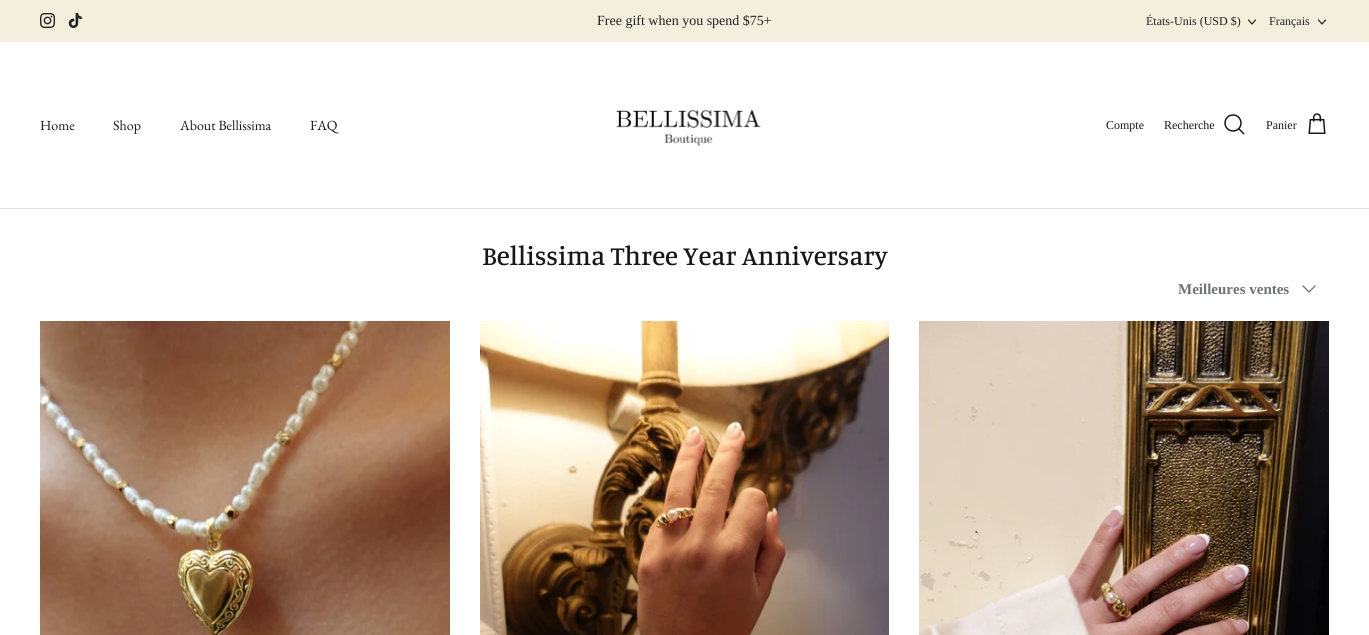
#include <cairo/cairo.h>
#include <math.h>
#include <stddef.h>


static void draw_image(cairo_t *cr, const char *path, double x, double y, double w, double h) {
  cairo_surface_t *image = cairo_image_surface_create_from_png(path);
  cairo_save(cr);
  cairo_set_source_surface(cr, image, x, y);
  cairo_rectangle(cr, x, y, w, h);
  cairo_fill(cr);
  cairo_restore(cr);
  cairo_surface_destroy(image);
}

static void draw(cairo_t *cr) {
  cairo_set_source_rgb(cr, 1, 1, 1);
  cairo_paint(cr);
  cairo_set_source_rgb(cr, 244 / 255.0, 238 / 255.0, 221 / 255.0);
  cairo_rectangle(cr, 0, 0, 1369, 42);
  cairo_fill(cr);
  draw_image(cr, "images/1.png", 40, 13, 15, 15);
  draw_image(cr, "images/2.png", 68, 13, 14, 15);
  cairo_new_path(cr);
  cairo_move_to(cr, 1248.5, 20);
  cairo_line_to(cr, 1252, 24);
  cairo_line_to(cr, 1255.5, 20);
  cairo_set_source_rgb(cr, 33 / 255.0, 33 / 255.0, 33 / 255.0);
  cairo_set_line_width(cr, 1.2);
  cairo_set_line_cap(cr, CAIRO_LINE_CAP_ROUND);
  cairo_set_line_join(cr, CAIRO_LINE_JOIN_ROUND);
  cairo_stroke(cr);
  cairo_new_path(cr);
  cairo_move_to(cr, 1318.5, 20);
  cairo_line_to(cr, 1322, 24);
  cairo_line_to(cr, 1325.5, 20);
  cairo_stroke(cr);
  cairo_set_source_rgb(cr, 223 / 255.0, 227 / 255.0, 232 / 255.0);
  cairo_rectangle(cr, 0, 208, 1369, 1);
  cairo_fill(cr);
  draw_image(cr, "images/3.png", 616, 109, 145, 37);
  cairo_arc(cr, 1233, 123, 8, 0, 2 * M_PI);
  cairo_set_source_rgb(cr, 23 / 255.0, 23 / 255.0, 23 / 255.0);
  cairo_set_line_width(cr, 1.5);
  cairo_set_line_cap(cr, CAIRO_LINE_CAP_BUTT);
  cairo_set_line_join(cr, CAIRO_LINE_JOIN_MITER);
  cairo_stroke(cr);
  cairo_new_path(cr);
  cairo_move_to(cr, 1239, 129);
  cairo_line_to(cr, 1243.5, 133.5);
  cairo_set_line_cap(cr, CAIRO_LINE_CAP_SQUARE);
  cairo_stroke(cr);
  draw_image(cr, "images/4.png", 1308, 113, 18, 21);
  cairo_new_path(cr);
  cairo_move_to(cr, 1303, 286);
  cairo_line_to(cr, 1309, 292);
  cairo_line_to(cr, 1315, 286);
  cairo_set_source_rgb(cr, 112 / 255.0, 113 / 255.0, 115 / 255.0);
  cairo_set_line_width(cr, 1.3);
  cairo_set_line_cap(cr, CAIRO_LINE_CAP_ROUND);
  cairo_set_line_join(cr, CAIRO_LINE_JOIN_ROUND);
  cairo_stroke(cr);
  draw_image(cr, "images/5.png", 40, 321, 410, 314);
  draw_image(cr, "images/6.png", 480, 321, 409, 314);
  draw_image(cr, "images/7.png", 919, 321, 410, 314);
  cairo_select_font_face(cr, "Liberation Serif", CAIRO_FONT_SLANT_NORMAL, CAIRO_FONT_WEIGHT_NORMAL);
  cairo_set_font_size(cr, 14);
  cairo_set_source_rgb(cr, 33 / 255.0, 33 / 255.0, 33 / 255.0);
  cairo_move_to(cr, 597, 25);
  cairo_show_text(cr, "Free gift when you spend $75+");
  cairo_set_font_size(cr, 12);
  cairo_move_to(cr, 1146, 25);
  cairo_show_text(cr, "États-Unis (USD $)");
  cairo_move_to(cr, 1269, 25);
  cairo_show_text(cr, "Français");
  cairo_select_font_face(cr, "EB Garamond", CAIRO_FONT_SLANT_NORMAL, CAIRO_FONT_WEIGHT_NORMAL);
  cairo_set_font_size(cr, 14);
  cairo_set_source_rgb(cr, 23 / 255.0, 23 / 255.0, 23 / 255.0);
  cairo_move_to(cr, 40, 130);
  cairo_show_text(cr, "Home");
  cairo_move_to(cr, 113, 130);
  cairo_show_text(cr, "Shop");
  cairo_move_to(cr, 180, 130);
  cairo_show_text(cr, "About Bellissima");
  cairo_move_to(cr, 310, 130);
  cairo_show_text(cr, "FAQ");
  cairo_select_font_face(cr, "Liberation Serif", CAIRO_FONT_SLANT_NORMAL, CAIRO_FONT_WEIGHT_NORMAL);
  cairo_set_font_size(cr, 12);
  cairo_move_to(cr, 1106, 129);
  cairo_show_text(cr, "Compte");
  cairo_move_to(cr, 1164, 129);
  cairo_show_text(cr, "Recherche");
  cairo_move_to(cr, 1266, 129);
  cairo_show_text(cr, "Panier");
  cairo_select_font_face(cr, "Manuale Medium", CAIRO_FONT_SLANT_NORMAL, CAIRO_FONT_WEIGHT_NORMAL);
  cairo_set_font_size(cr, 27);
  cairo_move_to(cr, 482, 265);
  cairo_show_text(cr, "Bellissima Three Year Anniversary");
  cairo_select_font_face(cr, "Liberation Serif", CAIRO_FONT_SLANT_NORMAL, CAIRO_FONT_WEIGHT_BOLD);
  cairo_set_font_size(cr, 15);
  cairo_set_source_rgb(cr, 112 / 255.0, 113 / 255.0, 115 / 255.0);
  cairo_move_to(cr, 1178, 294);
  cairo_show_text(cr, "Meilleures ventes");
}

int main(void) {
  cairo_surface_t *surface = cairo_image_surface_create(CAIRO_FORMAT_RGB24, 1369, 635);
  cairo_t *cr = cairo_create(surface);
  cairo_font_options_t *options = cairo_font_options_create();
  cairo_font_options_set_hint_metrics(options, CAIRO_HINT_METRICS_OFF);
  cairo_font_options_set_hint_style(options, CAIRO_HINT_STYLE_NONE);
  cairo_set_font_options(cr, options);
  cairo_set_miter_limit(cr, 4);
  draw(cr);
  cairo_surface_write_to_png(surface, "out.png");
  cairo_font_options_destroy(options);
  cairo_destroy(cr);
  cairo_surface_destroy(surface);
  return 0;
}
